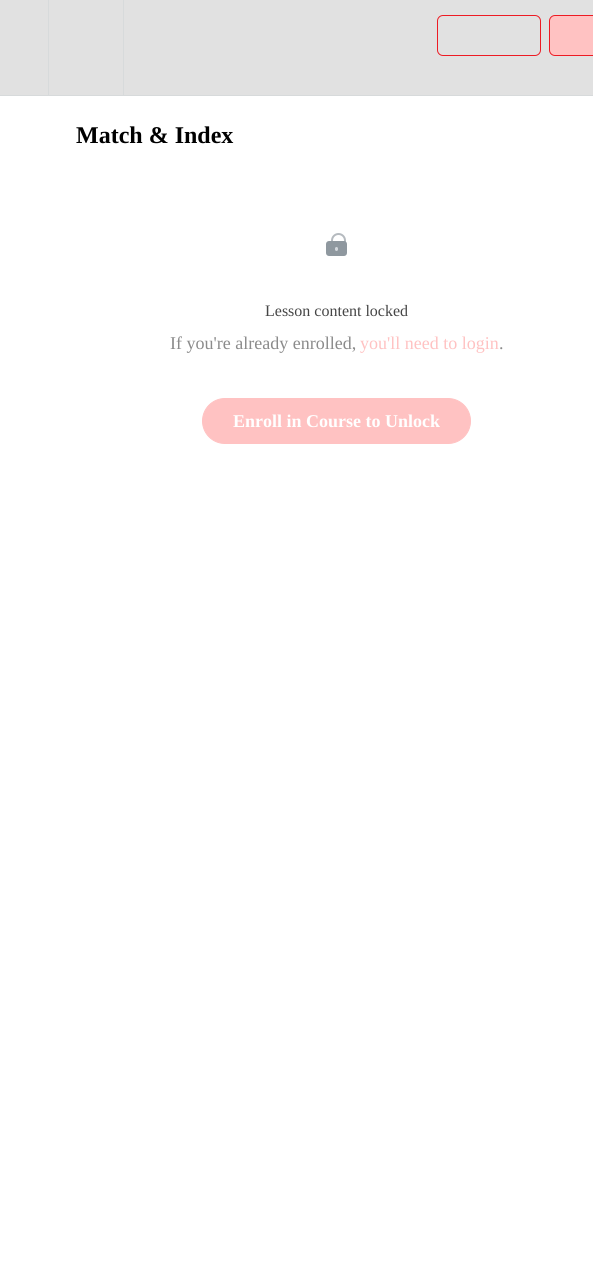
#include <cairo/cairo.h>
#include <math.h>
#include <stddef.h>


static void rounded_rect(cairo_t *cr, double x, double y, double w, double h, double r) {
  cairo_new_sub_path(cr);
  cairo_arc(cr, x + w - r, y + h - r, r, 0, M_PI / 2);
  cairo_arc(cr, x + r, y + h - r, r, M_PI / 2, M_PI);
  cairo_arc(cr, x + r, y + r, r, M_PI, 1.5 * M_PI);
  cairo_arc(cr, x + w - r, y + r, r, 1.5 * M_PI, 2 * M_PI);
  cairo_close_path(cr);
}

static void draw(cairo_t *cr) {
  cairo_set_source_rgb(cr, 1, 1, 1);
  cairo_paint(cr);
  cairo_set_source_rgb(cr, 225 / 255.0, 225 / 255.0, 225 / 255.0);
  cairo_rectangle(cr, 0, 0, 593, 95);
  cairo_fill(cr);
  cairo_set_source_rgb(cr, 215 / 255.0, 218 / 255.0, 219 / 255.0);
  cairo_rectangle(cr, 0, 95, 593, 1);
  cairo_fill(cr);
  cairo_rectangle(cr, 123, 0, 1, 95);
  cairo_fill(cr);
  cairo_rectangle(cr, 48, 0, 1, 95);
  cairo_fill(cr);
  rounded_rect(cr, 437.5, 15.5, 103, 40, 5.5);
  cairo_set_source_rgb(cr, 237 / 255.0, 27 / 255.0, 36 / 255.0);
  cairo_set_line_width(cr, 1);
  cairo_stroke(cr);
  cairo_set_source_rgb(cr, 1, 194 / 255.0, 194 / 255.0);
  rounded_rect(cr, 549.5, 15.5, 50, 40, 5.5);
  cairo_fill_preserve(cr);
  cairo_set_source_rgb(cr, 237 / 255.0, 27 / 255.0, 36 / 255.0);
  cairo_stroke(cr);
  rounded_rect(cr, 332, 234, 13, 20, 6.5);
  cairo_set_source_rgb(cr, 181 / 255.0, 186 / 255.0, 191 / 255.0);
  cairo_set_line_width(cr, 2);
  cairo_stroke(cr);
  cairo_set_source_rgb(cr, 143 / 255.0, 152 / 255.0, 159 / 255.0);
  rounded_rect(cr, 326, 241, 21, 15, 3);
  cairo_fill(cr);
  cairo_set_source_rgb(cr, 211 / 255.0, 215 / 255.0, 220 / 255.0);
  rounded_rect(cr, 335, 247, 3, 4, 1.5);
  cairo_fill(cr);
  cairo_set_source_rgb(cr, 1, 194 / 255.0, 194 / 255.0);
  rounded_rect(cr, 202.5, 398.5, 268, 45, 22.5);
  cairo_fill_preserve(cr);
  cairo_set_line_width(cr, 1);
  cairo_stroke(cr);
  cairo_select_font_face(cr, "Liberation Serif", CAIRO_FONT_SLANT_NORMAL, CAIRO_FONT_WEIGHT_BOLD);
  cairo_set_font_size(cr, 24);
  cairo_set_source_rgb(cr, 0, 0, 0);
  cairo_move_to(cr, 76, 143);
  cairo_show_text(cr, "Match & Index");
  cairo_select_font_face(cr, "Liberation Serif", CAIRO_FONT_SLANT_NORMAL, CAIRO_FONT_WEIGHT_NORMAL);
  cairo_set_font_size(cr, 16);
  cairo_set_source_rgb(cr, 69 / 255.0, 69 / 255.0, 69 / 255.0);
  cairo_move_to(cr, 265, 316);
  cairo_show_text(cr, "Lesson content locked");
  cairo_set_font_size(cr, 18);
  cairo_set_source_rgb(cr, 139 / 255.0, 139 / 255.0, 139 / 255.0);
  cairo_move_to(cr, 170, 349);
  cairo_show_text(cr, "If you're already enrolled,");
  cairo_set_source_rgb(cr, 1, 194 / 255.0, 194 / 255.0);
  cairo_move_to(cr, 360, 349);
  cairo_show_text(cr, "you'll need to login");
  cairo_set_source_rgb(cr, 139 / 255.0, 139 / 255.0, 139 / 255.0);
  cairo_move_to(cr, 499, 349);
  cairo_show_text(cr, ".");
  cairo_select_font_face(cr, "Liberation Serif", CAIRO_FONT_SLANT_NORMAL, CAIRO_FONT_WEIGHT_BOLD);
  cairo_set_source_rgb(cr, 1, 1, 1);
  cairo_move_to(cr, 233, 427);
  cairo_show_text(cr, "Enroll in Course to Unlock");
}

int main(void) {
  cairo_surface_t *surface = cairo_image_surface_create(CAIRO_FORMAT_RGB24, 593, 1276);
  cairo_t *cr = cairo_create(surface);
  cairo_font_options_t *options = cairo_font_options_create();
  cairo_font_options_set_hint_metrics(options, CAIRO_HINT_METRICS_OFF);
  cairo_font_options_set_hint_style(options, CAIRO_HINT_STYLE_NONE);
  cairo_set_font_options(cr, options);
  cairo_set_miter_limit(cr, 4);
  draw(cr);
  cairo_surface_write_to_png(surface, "out.png");
  cairo_font_options_destroy(options);
  cairo_destroy(cr);
  cairo_surface_destroy(surface);
  return 0;
}
